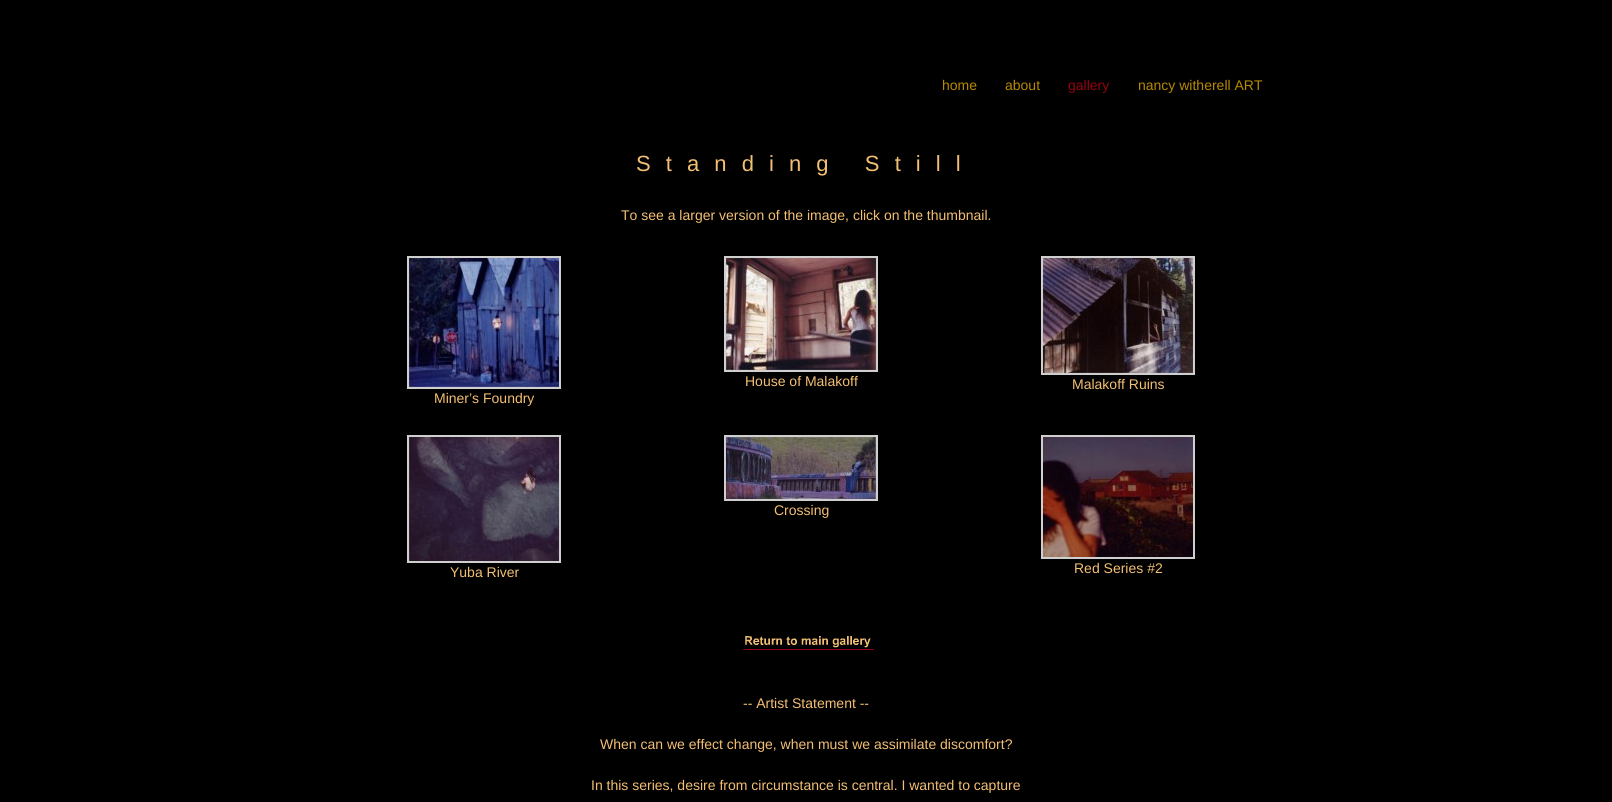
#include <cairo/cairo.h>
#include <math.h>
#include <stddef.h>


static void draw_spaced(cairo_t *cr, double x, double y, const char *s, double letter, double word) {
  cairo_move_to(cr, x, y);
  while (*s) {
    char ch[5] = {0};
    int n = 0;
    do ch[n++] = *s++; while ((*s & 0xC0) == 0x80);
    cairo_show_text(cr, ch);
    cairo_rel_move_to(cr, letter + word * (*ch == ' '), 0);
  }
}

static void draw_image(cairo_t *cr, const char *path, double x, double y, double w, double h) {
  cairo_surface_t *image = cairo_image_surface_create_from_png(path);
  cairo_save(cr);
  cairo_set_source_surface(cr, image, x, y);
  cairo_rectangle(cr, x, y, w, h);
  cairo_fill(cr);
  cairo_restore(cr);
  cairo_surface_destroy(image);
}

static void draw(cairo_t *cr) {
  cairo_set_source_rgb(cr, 0, 0, 0);
  cairo_paint(cr);
  cairo_rectangle(cr, 725, 257, 152, 114);
  cairo_set_source_rgb(cr, 207 / 255.0, 207 / 255.0, 207 / 255.0);
  cairo_stroke(cr);
  draw_image(cr, "images/1.png", 726, 258, 150, 112);
  cairo_rectangle(cr, 1042, 257, 152, 117);
  cairo_stroke(cr);
  draw_image(cr, "images/2.png", 1043, 258, 150, 115);
  cairo_rectangle(cr, 408, 257, 152, 131);
  cairo_stroke(cr);
  draw_image(cr, "images/3.png", 409, 258, 150, 129);
  cairo_rectangle(cr, 725, 436, 152, 64);
  cairo_stroke(cr);
  draw_image(cr, "images/4.png", 726, 437, 150, 62);
  cairo_rectangle(cr, 408, 436, 152, 126);
  cairo_stroke(cr);
  draw_image(cr, "images/5.png", 409, 437, 150, 124);
  cairo_rectangle(cr, 1042, 436, 152, 122);
  cairo_stroke(cr);
  draw_image(cr, "images/6.png", 1043, 437, 150, 120);
  draw_image(cr, "images/7.png", 743, 636, 131, 14);
  cairo_select_font_face(cr, "Liberation Sans", CAIRO_FONT_SLANT_NORMAL, CAIRO_FONT_WEIGHT_NORMAL);
  cairo_set_font_size(cr, 14);
  cairo_set_source_rgb(cr, 184 / 255.0, 138 / 255.0, 0);
  cairo_move_to(cr, 942, 90);
  cairo_show_text(cr, "home");
  cairo_move_to(cr, 1005, 90);
  cairo_show_text(cr, "about");
  cairo_set_source_rgb(cr, 148 / 255.0, 0, 16 / 255.0);
  cairo_move_to(cr, 1068, 90);
  cairo_show_text(cr, "gallery");
  cairo_set_source_rgb(cr, 184 / 255.0, 138 / 255.0, 0);
  cairo_move_to(cr, 1138, 90);
  cairo_show_text(cr, "nancy witherell ART");
  cairo_set_font_size(cr, 22);
  cairo_set_source_rgb(cr, 243 / 255.0, 191 / 255.0, 115 / 255.0);
  draw_spaced(cr, 636, 171, "Standing Still", 15.1, 0);
  cairo_set_font_size(cr, 14);
  cairo_move_to(cr, 621, 220);
  cairo_show_text(cr, "To see a larger version of the image, click on the thumbnail.");
  cairo_move_to(cr, 745, 386);
  cairo_show_text(cr, "House of Malakoff");
  cairo_move_to(cr, 1072, 389);
  cairo_show_text(cr, "Malakoff Ruins");
  cairo_move_to(cr, 434, 403);
  cairo_show_text(cr, "Miner’s Foundry");
  cairo_move_to(cr, 774, 515);
  cairo_show_text(cr, "Crossing");
  cairo_move_to(cr, 450, 577);
  cairo_show_text(cr, "Yuba River");
  cairo_move_to(cr, 1074, 573);
  cairo_show_text(cr, "Red Series #2");
  cairo_move_to(cr, 743, 708);
  cairo_show_text(cr, "-- Artist Statement --");
  cairo_move_to(cr, 600, 749);
  cairo_show_text(cr, "When can we effect change, when must we assimilate discomfort?");
  cairo_move_to(cr, 591, 790);
  cairo_show_text(cr, "In this series, desire from circumstance is central. I wanted to capture");
}

int main(void) {
  cairo_surface_t *surface = cairo_image_surface_create(CAIRO_FORMAT_RGB24, 1612, 802);
  cairo_t *cr = cairo_create(surface);
  cairo_font_options_t *options = cairo_font_options_create();
  cairo_font_options_set_hint_metrics(options, CAIRO_HINT_METRICS_OFF);
  cairo_font_options_set_hint_style(options, CAIRO_HINT_STYLE_NONE);
  cairo_set_font_options(cr, options);
  cairo_set_miter_limit(cr, 4);
  draw(cr);
  cairo_surface_write_to_png(surface, "out.png");
  cairo_font_options_destroy(options);
  cairo_destroy(cr);
  cairo_surface_destroy(surface);
  return 0;
}
